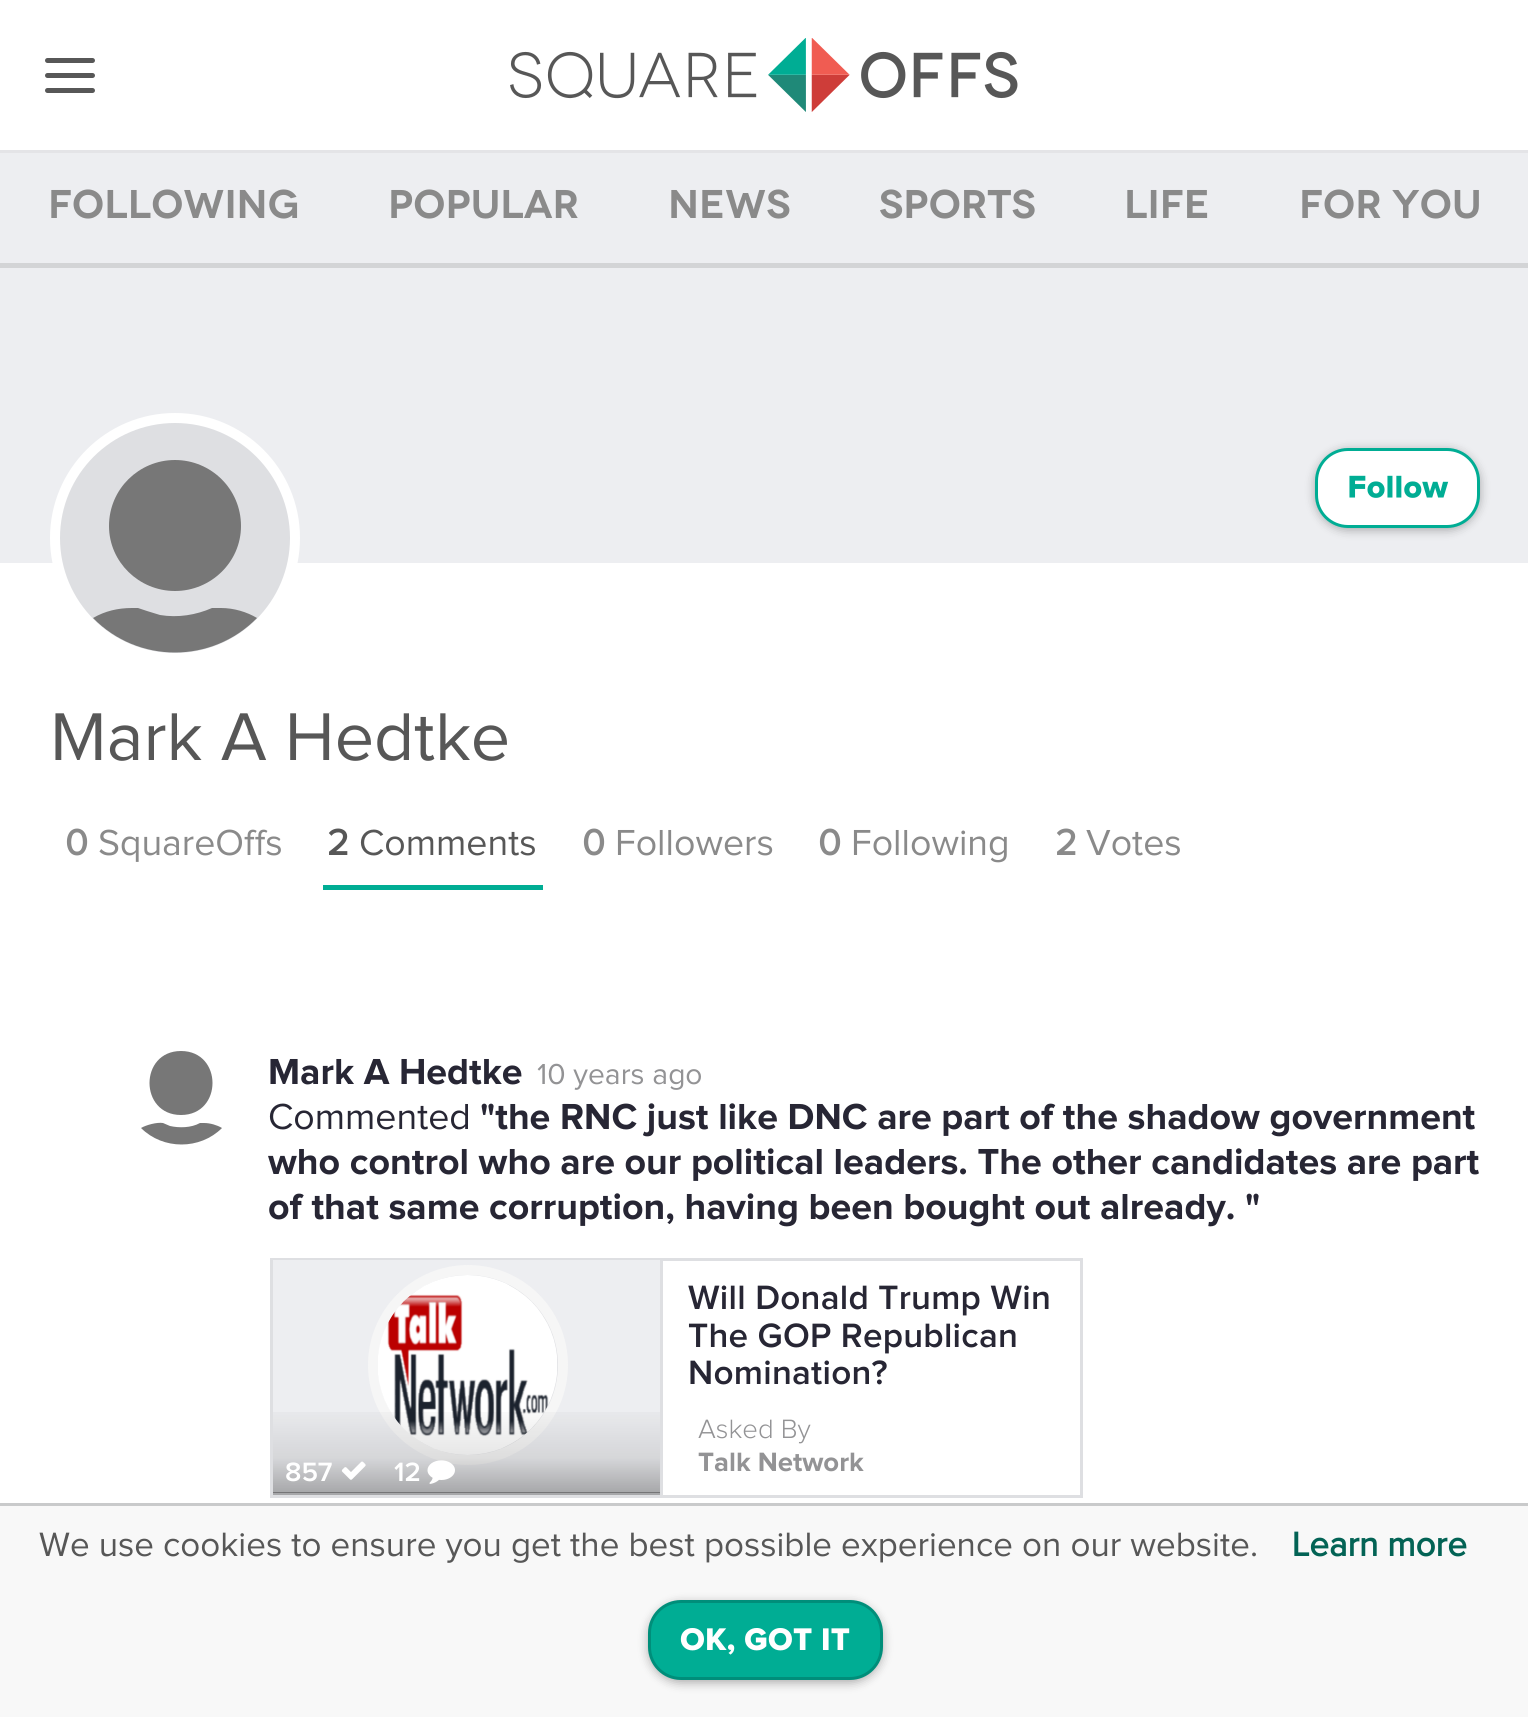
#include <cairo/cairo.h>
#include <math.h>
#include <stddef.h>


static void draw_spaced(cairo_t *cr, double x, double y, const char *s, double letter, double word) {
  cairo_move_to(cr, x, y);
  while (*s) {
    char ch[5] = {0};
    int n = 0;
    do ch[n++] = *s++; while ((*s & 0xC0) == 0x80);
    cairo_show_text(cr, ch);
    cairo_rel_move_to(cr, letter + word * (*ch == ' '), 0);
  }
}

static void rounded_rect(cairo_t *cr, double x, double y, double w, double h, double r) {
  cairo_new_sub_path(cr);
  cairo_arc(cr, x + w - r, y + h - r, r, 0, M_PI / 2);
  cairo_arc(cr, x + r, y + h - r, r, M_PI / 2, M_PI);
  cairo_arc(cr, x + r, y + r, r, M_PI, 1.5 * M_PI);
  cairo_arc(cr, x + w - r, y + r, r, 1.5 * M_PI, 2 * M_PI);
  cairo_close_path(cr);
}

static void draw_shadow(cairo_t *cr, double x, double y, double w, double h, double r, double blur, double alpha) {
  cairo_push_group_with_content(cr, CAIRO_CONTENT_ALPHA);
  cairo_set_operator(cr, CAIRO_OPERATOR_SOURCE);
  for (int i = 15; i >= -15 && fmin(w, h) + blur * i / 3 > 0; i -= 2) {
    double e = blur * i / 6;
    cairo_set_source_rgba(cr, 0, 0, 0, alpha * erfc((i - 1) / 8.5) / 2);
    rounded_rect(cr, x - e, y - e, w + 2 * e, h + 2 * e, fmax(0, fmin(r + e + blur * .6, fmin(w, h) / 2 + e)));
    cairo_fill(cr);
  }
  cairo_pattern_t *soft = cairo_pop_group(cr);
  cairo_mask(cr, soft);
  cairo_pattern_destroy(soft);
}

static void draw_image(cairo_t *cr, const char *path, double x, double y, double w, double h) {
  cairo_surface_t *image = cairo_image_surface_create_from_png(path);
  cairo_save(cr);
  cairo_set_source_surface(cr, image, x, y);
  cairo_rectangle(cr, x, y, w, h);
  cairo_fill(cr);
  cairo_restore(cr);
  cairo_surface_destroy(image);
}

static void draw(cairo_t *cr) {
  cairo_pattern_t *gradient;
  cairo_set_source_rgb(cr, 1, 1, 1);
  cairo_paint(cr);
  cairo_set_source_rgb(cr, 228 / 255.0, 228 / 255.0, 231 / 255.0);
  cairo_rectangle(cr, 0, 150, 1528, 3);
  cairo_fill(cr);
  draw_image(cr, "images/1.png", 510, 38, 508, 74);
  cairo_set_source_rgb(cr, 87 / 255.0, 87 / 255.0, 87 / 255.0);
  rounded_rect(cr, 45, 73, 50, 5, 2.5);
  cairo_fill(cr);
  rounded_rect(cr, 45, 58, 50, 5, 2.5);
  cairo_fill(cr);
  rounded_rect(cr, 45, 88, 50, 5, 2.5);
  cairo_fill(cr);
  cairo_set_source_rgb(cr, 237 / 255.0, 238 / 255.0, 241 / 255.0);
  cairo_rectangle(cr, 0, 153, 1528, 110);
  cairo_fill(cr);
  cairo_set_source_rgb(cr, 211 / 255.0, 212 / 255.0, 214 / 255.0);
  cairo_rectangle(cr, 0, 263, 1528, 5);
  cairo_fill(cr);
  cairo_set_source_rgb(cr, 237 / 255.0, 238 / 255.0, 241 / 255.0);
  cairo_rectangle(cr, 0, 268, 1528, 295);
  cairo_fill(cr);
  cairo_set_source_rgb(cr, 222 / 255.0, 223 / 255.0, 226 / 255.0);
  cairo_arc(cr, 175, 538, 120, 0, 2 * M_PI);
  cairo_fill_preserve(cr);
  cairo_set_source_rgb(cr, 1, 1, 1);
  cairo_set_line_width(cr, 10);
  cairo_stroke(cr);
  cairo_set_source_rgb(cr, 119 / 255.0, 119 / 255.0, 119 / 255.0);
  cairo_set_fill_rule(cr, CAIRO_FILL_RULE_EVEN_ODD);
  cairo_new_path(cr);
  cairo_move_to(cr, 221, 608);
  cairo_curve_to(cr, 234, 608, 247, 612, 257, 618);
  cairo_curve_to(cr, 212, 664, 138, 664, 93, 618);
  cairo_curve_to(cr, 105, 611, 118, 608, 132, 608);
  cairo_line_to(cr, 138, 608);
  cairo_line_to(cr, 147, 611);
  cairo_line_to(cr, 160, 615);
  cairo_curve_to(cr, 178, 618, 196, 615, 212, 608);
  cairo_close_path(cr);
  cairo_move_to(cr, 175, 591);
  cairo_curve_to(cr, 139, 591, 109, 562, 109, 526);
  cairo_curve_to(cr, 109, 489, 139, 460, 175, 460);
  cairo_curve_to(cr, 211, 460, 241, 489, 241, 526);
  cairo_curve_to(cr, 241, 562, 211, 591, 175, 591);
  cairo_close_path(cr);
  cairo_fill(cr);
  cairo_set_source_rgb(cr, 0, 0, 0);
  draw_shadow(cr, 1315, 450, 165, 80, 33, 5, 0.3);
  cairo_set_source_rgb(cr, 1, 1, 1);
  rounded_rect(cr, 1316.5, 449.5, 162, 77, 31.5);
  cairo_fill_preserve(cr);
  cairo_set_source_rgb(cr, 0, 173 / 255.0, 148 / 255.0);
  cairo_set_line_width(cr, 3);
  cairo_stroke(cr);
  draw_image(cr, "images/2.png", 1349, 475, 100, 23);
  cairo_rectangle(cr, 323, 885, 220, 5);
  cairo_fill(cr);
  cairo_set_source_rgb(cr, 119 / 255.0, 119 / 255.0, 119 / 255.0);
  cairo_new_path(cr);
  cairo_move_to(cr, 204, 1123);
  cairo_curve_to(cr, 210, 1123, 217, 1125, 222, 1128);
  cairo_curve_to(cr, 200, 1150, 163, 1150, 141, 1128);
  cairo_curve_to(cr, 146, 1125, 157, 1122, 163, 1123);
  cairo_line_to(cr, 170, 1126);
  cairo_curve_to(cr, 179, 1128, 191, 1128, 200, 1123);
  cairo_close_path(cr);
  cairo_move_to(cr, 181, 1115);
  cairo_curve_to(cr, 139, 1115, 139, 1051, 181, 1051);
  cairo_curve_to(cr, 223, 1051, 223, 1115, 181, 1115);
  cairo_close_path(cr);
  cairo_fill(cr);
  cairo_rectangle(cr, 271.5, 1259.5, 810, 237);
  cairo_set_source_rgb(cr, 222 / 255.0, 223 / 255.0, 226 / 255.0);
  cairo_stroke(cr);
  cairo_set_source_rgb(cr, 237 / 255.0, 238 / 255.0, 241 / 255.0);
  cairo_rectangle(cr, 273, 1260, 387, 235);
  cairo_fill(cr);
  cairo_set_source_rgb(cr, 222 / 255.0, 223 / 255.0, 226 / 255.0);
  cairo_rectangle(cr, 660, 1260, 3, 235);
  cairo_fill(cr);
  cairo_arc(cr, 468, 1365, 95, 0, 2 * M_PI);
  cairo_fill_preserve(cr);
  cairo_set_source_rgb(cr, 246 / 255.0, 246 / 255.0, 246 / 255.0);
  cairo_set_line_width(cr, 10);
  cairo_stroke(cr);
  draw_image(cr, "images/3.png", 378, 1275, 180, 180);
  gradient = cairo_pattern_create_linear(466, 1260, 466, 1493);
  cairo_pattern_add_color_stop_rgba(gradient, 0, 0, 0, 0, 0);
  cairo_pattern_add_color_stop_rgba(gradient, 0.6, 0, 0, 0, 0);
  cairo_pattern_add_color_stop_rgba(gradient, 0.85, 0, 0, 0, 0.1);
  cairo_pattern_add_color_stop_rgba(gradient, 1, 0, 0, 0, 0.3);
  cairo_set_source(cr, gradient);
  cairo_pattern_destroy(gradient);
  cairo_rectangle(cr, 273, 1412, 387, 81);
  cairo_fill(cr);
  cairo_save(cr);
  cairo_set_fill_rule(cr, CAIRO_FILL_RULE_WINDING);
  cairo_rectangle(cr, 273, 1260, 387, 235);
  cairo_clip(cr);
  cairo_set_source_rgba(cr, 0, 0, 0, 0.3);
  cairo_new_path(cr);
  cairo_move_to(cr, 662, 1495);
  cairo_line_to(cr, 270, 1495);
  cairo_line_to(cr, 272, 1492);
  cairo_line_to(cr, 660, 1492);
  cairo_close_path(cr);
  cairo_fill(cr);
  cairo_restore(cr);
  draw_image(cr, "images/4.png", 341, 1461, 25, 19);
  draw_image(cr, "images/5.png", 427, 1460, 28, 24);
  cairo_set_source_rgb(cr, 248 / 255.0, 248 / 255.0, 248 / 255.0);
  cairo_rectangle(cr, 0, 1506, 1528, 211);
  cairo_fill(cr);
  cairo_set_source_rgb(cr, 201 / 255.0, 202 / 255.0, 203 / 255.0);
  cairo_rectangle(cr, 0, 1503, 1528, 3);
  cairo_fill(cr);
  cairo_set_source_rgb(cr, 0, 0, 0);
  draw_shadow(cr, 648, 1603, 235, 80, 33, 5, 0.3);
  cairo_set_source_rgb(cr, 0, 173 / 255.0, 148 / 255.0);
  rounded_rect(cr, 649.5, 1601.5, 232, 77, 31.5);
  cairo_fill_preserve(cr);
  cairo_set_source_rgb(cr, 0, 142 / 255.0, 122 / 255.0);
  cairo_set_line_width(cr, 3);
  cairo_stroke(cr);
  draw_image(cr, "images/6.png", 680, 1628, 170, 27);
  cairo_select_font_face(cr, "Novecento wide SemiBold", CAIRO_FONT_SLANT_NORMAL, CAIRO_FONT_WEIGHT_NORMAL);
  cairo_set_font_size(cr, 40);
  cairo_set_source_rgb(cr, 138 / 255.0, 138 / 255.0, 138 / 255.0);
  cairo_move_to(cr, 48, 218);
  cairo_show_text(cr, "Following");
  cairo_move_to(cr, 388, 218);
  cairo_show_text(cr, "Popular");
  cairo_move_to(cr, 668, 218);
  cairo_show_text(cr, "News");
  cairo_move_to(cr, 879, 218);
  cairo_show_text(cr, "Sports");
  cairo_move_to(cr, 1124, 218);
  cairo_show_text(cr, "Life");
  cairo_move_to(cr, 1299, 218);
  cairo_show_text(cr, "For you");
  cairo_select_font_face(cr, "Proxima Nova", CAIRO_FONT_SLANT_NORMAL, CAIRO_FONT_WEIGHT_NORMAL);
  cairo_set_font_size(cr, 70);
  cairo_set_source_rgb(cr, 87 / 255.0, 87 / 255.0, 87 / 255.0);
  cairo_move_to(cr, 50, 760);
  cairo_show_text(cr, "Mark A Hedtke");
  cairo_select_font_face(cr, "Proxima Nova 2", CAIRO_FONT_SLANT_NORMAL, CAIRO_FONT_WEIGHT_BOLD);
  cairo_set_font_size(cr, 37.5);
  cairo_set_source_rgb(cr, 138 / 255.0, 138 / 255.0, 138 / 255.0);
  cairo_move_to(cr, 65, 855);
  cairo_show_text(cr, "0");
  cairo_select_font_face(cr, "Proxima Nova", CAIRO_FONT_SLANT_NORMAL, CAIRO_FONT_WEIGHT_NORMAL);
  cairo_move_to(cr, 98, 855);
  cairo_show_text(cr, "SquareOffs");
  cairo_select_font_face(cr, "Proxima Nova 2", CAIRO_FONT_SLANT_NORMAL, CAIRO_FONT_WEIGHT_BOLD);
  cairo_set_source_rgb(cr, 87 / 255.0, 87 / 255.0, 87 / 255.0);
  cairo_move_to(cr, 327, 855);
  cairo_show_text(cr, "2");
  cairo_select_font_face(cr, "Proxima Nova", CAIRO_FONT_SLANT_NORMAL, CAIRO_FONT_WEIGHT_NORMAL);
  cairo_move_to(cr, 359, 855);
  cairo_show_text(cr, "Comments");
  cairo_select_font_face(cr, "Proxima Nova 2", CAIRO_FONT_SLANT_NORMAL, CAIRO_FONT_WEIGHT_BOLD);
  cairo_set_source_rgb(cr, 138 / 255.0, 138 / 255.0, 138 / 255.0);
  cairo_move_to(cr, 582, 855);
  cairo_show_text(cr, "0");
  cairo_select_font_face(cr, "Proxima Nova", CAIRO_FONT_SLANT_NORMAL, CAIRO_FONT_WEIGHT_NORMAL);
  cairo_move_to(cr, 615, 855);
  cairo_show_text(cr, "Followers");
  cairo_select_font_face(cr, "Proxima Nova 2", CAIRO_FONT_SLANT_NORMAL, CAIRO_FONT_WEIGHT_BOLD);
  cairo_move_to(cr, 818, 855);
  cairo_show_text(cr, "0");
  cairo_select_font_face(cr, "Proxima Nova", CAIRO_FONT_SLANT_NORMAL, CAIRO_FONT_WEIGHT_NORMAL);
  cairo_move_to(cr, 851, 855);
  cairo_show_text(cr, "Following");
  cairo_select_font_face(cr, "Proxima Nova 2", CAIRO_FONT_SLANT_NORMAL, CAIRO_FONT_WEIGHT_BOLD);
  cairo_move_to(cr, 1055, 855);
  cairo_show_text(cr, "2");
  cairo_select_font_face(cr, "Proxima Nova", CAIRO_FONT_SLANT_NORMAL, CAIRO_FONT_WEIGHT_NORMAL);
  cairo_move_to(cr, 1086, 855);
  cairo_show_text(cr, "Votes");
  cairo_select_font_face(cr, "Proxima Nova", CAIRO_FONT_SLANT_NORMAL, CAIRO_FONT_WEIGHT_BOLD);
  cairo_set_source_rgb(cr, 39 / 255.0, 38 / 255.0, 52 / 255.0);
  cairo_move_to(cr, 268, 1084);
  cairo_show_text(cr, "Mark A Hedtke");
  cairo_select_font_face(cr, "Proxima Nova", CAIRO_FONT_SLANT_NORMAL, CAIRO_FONT_WEIGHT_NORMAL);
  cairo_set_font_size(cr, 30);
  cairo_set_source_rgb(cr, 147 / 255.0, 147 / 255.0, 149 / 255.0);
  cairo_move_to(cr, 537, 1084);
  cairo_show_text(cr, "10 years ago");
  cairo_set_font_size(cr, 37.5);
  cairo_set_source_rgb(cr, 39 / 255.0, 38 / 255.0, 52 / 255.0);
  cairo_move_to(cr, 268, 1129);
  cairo_show_text(cr, "Commented");
  cairo_select_font_face(cr, "Proxima Nova", CAIRO_FONT_SLANT_NORMAL, CAIRO_FONT_WEIGHT_BOLD);
  cairo_move_to(cr, 480, 1129);
  cairo_show_text(cr, "\"the RNC just like DNC are part of the shadow government");
  cairo_move_to(cr, 268, 1174);
  cairo_show_text(cr, "who control who are our political leaders. The other candidates are part");
  cairo_move_to(cr, 268, 1219);
  cairo_show_text(cr, "of that same corruption, having been bought out already. \"");
  cairo_select_font_face(cr, "Proxima Nova SemiBold", CAIRO_FONT_SLANT_NORMAL, CAIRO_FONT_WEIGHT_NORMAL);
  cairo_set_font_size(cr, 35);
  draw_spaced(cr, 688, 1309, "Will Donald Trump Win", 0.25, 0);
  draw_spaced(cr, 688, 1347, "The GOP Republican", 0.25, 0);
  draw_spaced(cr, 688, 1384, "Nomination?", 0.25, 0);
  cairo_set_font_size(cr, 27.5);
  cairo_set_source_rgb(cr, 1, 1, 1);
  cairo_move_to(cr, 285, 1481);
  cairo_show_text(cr, "857");
  cairo_move_to(cr, 394, 1481);
  cairo_show_text(cr, "12");
  cairo_select_font_face(cr, "Proxima Nova Light", CAIRO_FONT_SLANT_NORMAL, CAIRO_FONT_WEIGHT_NORMAL);
  cairo_set_source_rgb(cr, 147 / 255.0, 147 / 255.0, 149 / 255.0);
  cairo_move_to(cr, 698, 1438);
  cairo_show_text(cr, "Asked By");
  cairo_select_font_face(cr, "Proxima Nova", CAIRO_FONT_SLANT_NORMAL, CAIRO_FONT_WEIGHT_BOLD);
  cairo_move_to(cr, 698, 1471);
  cairo_show_text(cr, "Talk Network");
  cairo_select_font_face(cr, "Proxima Nova", CAIRO_FONT_SLANT_NORMAL, CAIRO_FONT_WEIGHT_NORMAL);
  cairo_set_font_size(cr, 35);
  cairo_set_source_rgb(cr, 87 / 255.0, 87 / 255.0, 87 / 255.0);
  cairo_move_to(cr, 39, 1556);
  cairo_show_text(cr, "We use cookies to ensure you get the best possible experience on our website.");
  cairo_select_font_face(cr, "Proxima Nova 2", CAIRO_FONT_SLANT_NORMAL, CAIRO_FONT_WEIGHT_BOLD);
  cairo_set_source_rgb(cr, 3 / 255.0, 99 / 255.0, 85 / 255.0);
  cairo_move_to(cr, 1292, 1556);
  cairo_show_text(cr, "Learn more");
}

int main(void) {
  cairo_surface_t *surface = cairo_image_surface_create(CAIRO_FORMAT_RGB24, 1528, 1717);
  cairo_t *cr = cairo_create(surface);
  cairo_font_options_t *options = cairo_font_options_create();
  cairo_font_options_set_hint_metrics(options, CAIRO_HINT_METRICS_OFF);
  cairo_font_options_set_hint_style(options, CAIRO_HINT_STYLE_NONE);
  cairo_set_font_options(cr, options);
  cairo_set_miter_limit(cr, 4);
  draw(cr);
  cairo_surface_write_to_png(surface, "out.png");
  cairo_font_options_destroy(options);
  cairo_destroy(cr);
  cairo_surface_destroy(surface);
  return 0;
}
